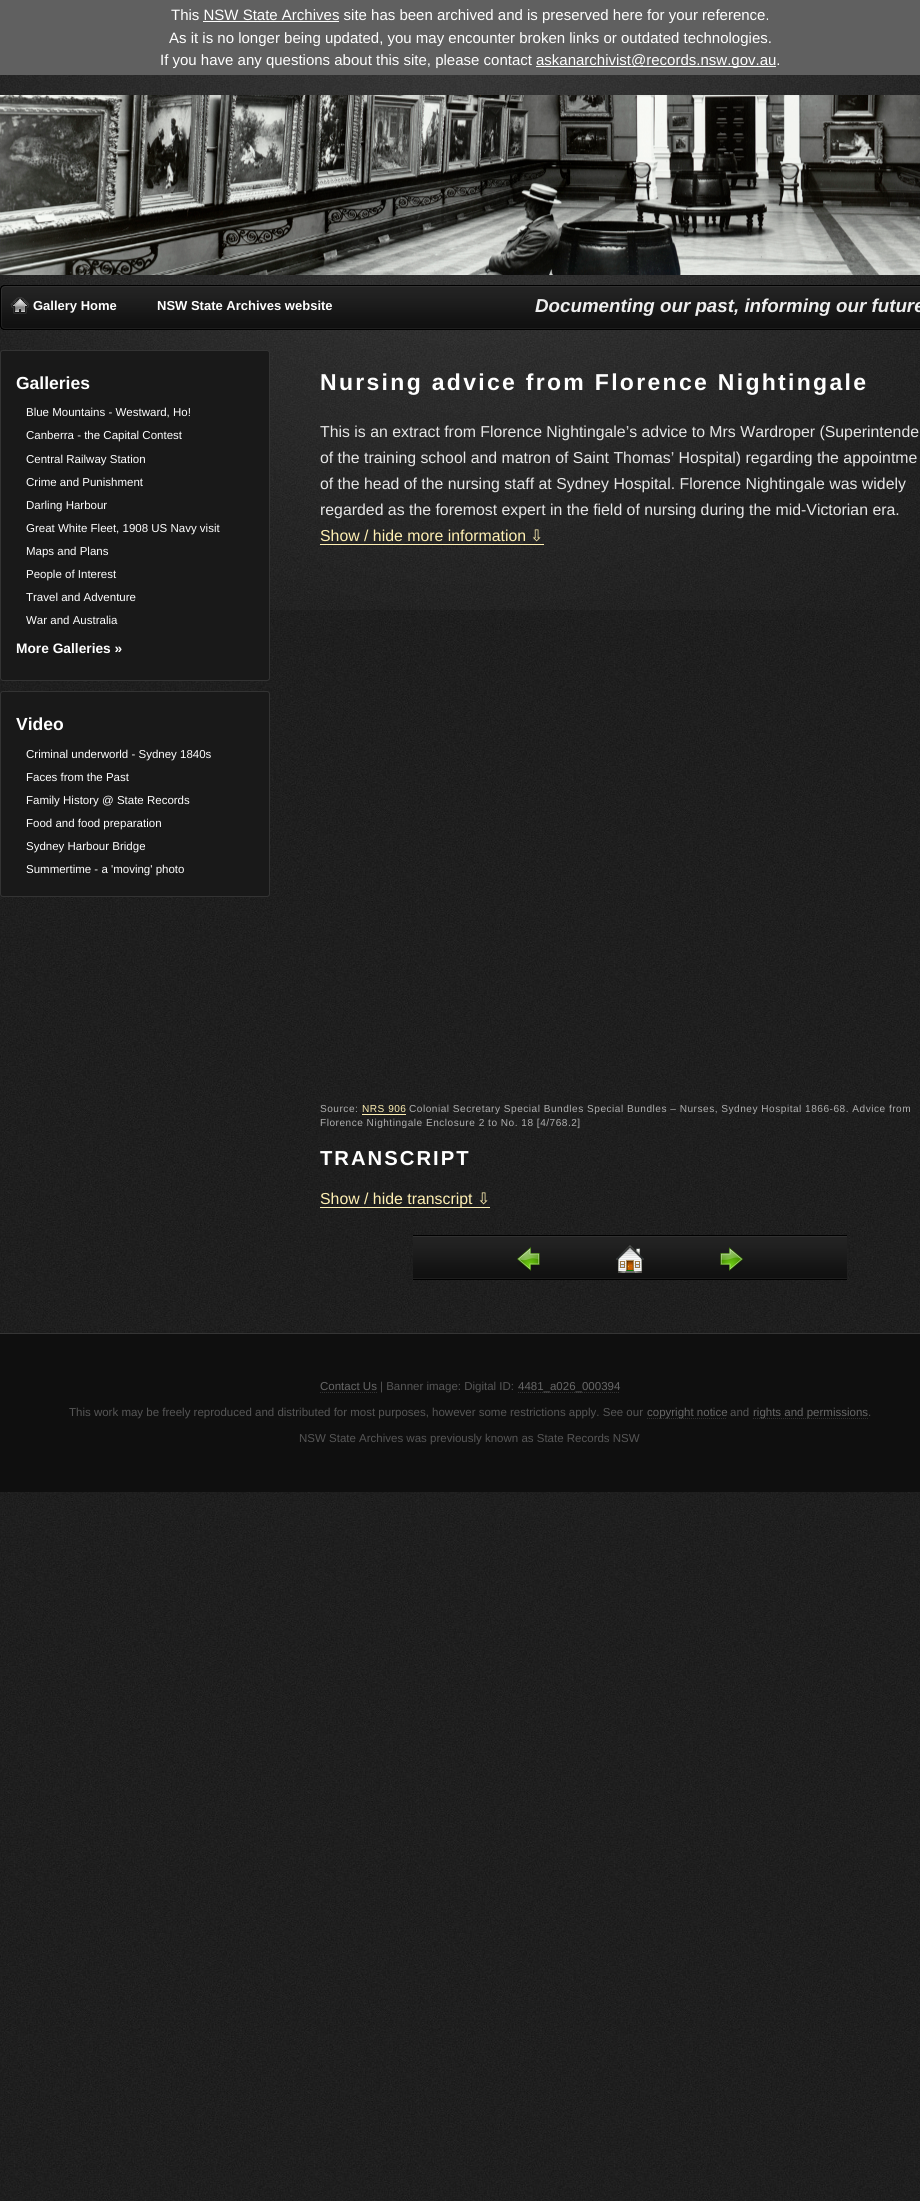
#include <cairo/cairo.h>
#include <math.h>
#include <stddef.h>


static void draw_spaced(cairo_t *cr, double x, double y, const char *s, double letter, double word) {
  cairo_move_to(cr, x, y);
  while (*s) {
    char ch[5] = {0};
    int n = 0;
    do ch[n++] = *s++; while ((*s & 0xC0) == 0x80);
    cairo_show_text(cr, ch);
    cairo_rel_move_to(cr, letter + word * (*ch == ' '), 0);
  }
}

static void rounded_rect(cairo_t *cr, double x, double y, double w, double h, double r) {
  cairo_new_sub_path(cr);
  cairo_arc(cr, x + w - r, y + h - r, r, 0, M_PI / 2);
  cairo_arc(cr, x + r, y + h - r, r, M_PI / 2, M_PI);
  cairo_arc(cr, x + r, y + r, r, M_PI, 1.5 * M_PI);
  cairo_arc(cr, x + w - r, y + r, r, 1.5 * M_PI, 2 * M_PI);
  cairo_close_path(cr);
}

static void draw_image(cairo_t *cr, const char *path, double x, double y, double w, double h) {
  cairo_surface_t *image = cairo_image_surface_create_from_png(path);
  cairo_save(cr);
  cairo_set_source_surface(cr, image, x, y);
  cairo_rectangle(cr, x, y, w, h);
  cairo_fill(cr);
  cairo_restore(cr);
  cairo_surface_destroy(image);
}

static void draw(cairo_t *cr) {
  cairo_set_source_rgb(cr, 1, 1, 1);
  cairo_paint(cr);
  draw_image(cr, "images/1.png", 0, 75, 920, 2126);
  cairo_set_source_rgb(cr, 96 / 255.0, 96 / 255.0, 96 / 255.0);
  cairo_rectangle(cr, 0, 0, 920, 75);
  cairo_fill(cr);
  cairo_set_source_rgb(cr, 1, 1, 1);
  cairo_rectangle(cr, 203, 21, 136, 1);
  cairo_fill(cr);
  cairo_rectangle(cr, 536, 66, 240, 1);
  cairo_fill(cr);
  draw_image(cr, "images/2.png", 0, 75, 920, 535);
  draw_image(cr, "images/3.png", 0, 95, 920, 180);
  draw_image(cr, "images/4.png", 0, 285, 920, 45);
  draw_image(cr, "images/5.png", 10, 297, 20, 17);
  cairo_set_source_rgb(cr, 25 / 255.0, 25 / 255.0, 25 / 255.0);
  rounded_rect(cr, 0.5, 350.5, 269, 330, 2.5);
  cairo_fill_preserve(cr);
  cairo_set_source_rgb(cr, 51 / 255.0, 51 / 255.0, 51 / 255.0);
  cairo_set_line_width(cr, 1);
  cairo_stroke(cr);
  cairo_set_source_rgb(cr, 25 / 255.0, 25 / 255.0, 25 / 255.0);
  rounded_rect(cr, 0.5, 691.5, 269, 205, 2.5);
  cairo_fill_preserve(cr);
  cairo_set_source_rgb(cr, 51 / 255.0, 51 / 255.0, 51 / 255.0);
  cairo_stroke(cr);
  cairo_set_source_rgb(cr, 1, 240 / 255.0, 179 / 255.0);
  cairo_rectangle(cr, 320, 544, 224, 1);
  cairo_fill(cr);
  cairo_rectangle(cr, 362, 1114, 44, 1);
  cairo_fill(cr);
  cairo_rectangle(cr, 320, 1207, 170, 1);
  cairo_fill(cr);
  draw_image(cr, "images/6.png", 413, 1235, 434, 45);
  draw_image(cr, "images/7.png", 517, 1247, 23, 24);
  draw_image(cr, "images/8.png", 616, 1245, 28, 28);
  draw_image(cr, "images/9.png", 720, 1247, 23, 24);
  cairo_set_source_rgb(cr, 15 / 255.0, 15 / 255.0, 15 / 255.0);
  cairo_rectangle(cr, 0, 1334, 920, 158);
  cairo_fill(cr);
  cairo_set_source_rgb(cr, 53 / 255.0, 53 / 255.0, 53 / 255.0);
  cairo_rectangle(cr, 0, 1333, 920, 1);
  cairo_fill(cr);
  cairo_new_path(cr);
  cairo_move_to(cr, 320, 1392.5);
  cairo_line_to(cr, 377, 1392.5);
  cairo_set_source_rgb(cr, 51 / 255.0, 51 / 255.0, 51 / 255.0);
  cairo_set_dash(cr, (double[]){1, 1}, 2, 0);
  cairo_stroke(cr);
  cairo_new_path(cr);
  cairo_move_to(cr, 518, 1392.5);
  cairo_line_to(cr, 620, 1392.5);
  cairo_stroke(cr);
  cairo_new_path(cr);
  cairo_move_to(cr, 647, 1418.5);
  cairo_line_to(cr, 727, 1418.5);
  cairo_stroke(cr);
  cairo_new_path(cr);
  cairo_move_to(cr, 753, 1418.5);
  cairo_line_to(cr, 868, 1418.5);
  cairo_stroke(cr);
  cairo_select_font_face(cr, "Liberation Sans", CAIRO_FONT_SLANT_NORMAL, CAIRO_FONT_WEIGHT_NORMAL);
  cairo_set_font_size(cr, 15);
  cairo_set_source_rgb(cr, 1, 1, 1);
  cairo_move_to(cr, 171, 20);
  cairo_show_text(cr, "This NSW State Archives site has been archived and is preserved here for your reference.");
  cairo_move_to(cr, 169, 43);
  cairo_show_text(cr, "As it is no longer being updated, you may encounter broken links or outdated technologies.");
  cairo_move_to(cr, 160, 65);
  cairo_show_text(cr, "If you have any questions about this site, please contact");
  cairo_move_to(cr, 536, 65);
  cairo_show_text(cr, "askanarchivist@records.nsw.gov.au.");
  cairo_select_font_face(cr, "Liberation Sans", CAIRO_FONT_SLANT_NORMAL, CAIRO_FONT_WEIGHT_BOLD);
  cairo_set_font_size(cr, 13);
  cairo_move_to(cr, 33, 310);
  cairo_show_text(cr, "Gallery Home");
  cairo_move_to(cr, 157, 310);
  cairo_show_text(cr, "NSW State Archives website");
  cairo_select_font_face(cr, "Liberation Sans", CAIRO_FONT_SLANT_ITALIC, CAIRO_FONT_WEIGHT_BOLD);
  cairo_set_font_size(cr, 18.75);
  cairo_set_source_rgb(cr, 238 / 255.0, 238 / 255.0, 238 / 255.0);
  cairo_move_to(cr, 535, 312);
  cairo_show_text(cr, "Documenting our past, informing our future");
  cairo_select_font_face(cr, "Liberation Sans", CAIRO_FONT_SLANT_NORMAL, CAIRO_FONT_WEIGHT_BOLD);
  cairo_set_font_size(cr, 17.5);
  cairo_set_source_rgb(cr, 1, 1, 1);
  cairo_move_to(cr, 16, 389);
  cairo_show_text(cr, "Galleries");
  cairo_select_font_face(cr, "Liberation Sans", CAIRO_FONT_SLANT_NORMAL, CAIRO_FONT_WEIGHT_NORMAL);
  cairo_set_font_size(cr, 11.5);
  cairo_move_to(cr, 26, 416);
  cairo_show_text(cr, "Blue Mountains - Westward, Ho!");
  cairo_move_to(cr, 26, 439);
  cairo_show_text(cr, "Canberra - the Capital Contest");
  cairo_move_to(cr, 26, 463);
  cairo_show_text(cr, "Central Railway Station");
  cairo_move_to(cr, 26, 486);
  cairo_show_text(cr, "Crime and Punishment");
  cairo_move_to(cr, 26, 509);
  cairo_show_text(cr, "Darling Harbour");
  cairo_move_to(cr, 26, 532);
  cairo_show_text(cr, "Great White Fleet, 1908 US Navy visit");
  cairo_move_to(cr, 26, 555);
  cairo_show_text(cr, "Maps and Plans");
  cairo_move_to(cr, 26, 578);
  cairo_show_text(cr, "People of Interest");
  cairo_move_to(cr, 26, 601);
  cairo_show_text(cr, "Travel and Adventure");
  cairo_move_to(cr, 26, 624);
  cairo_show_text(cr, "War and Australia");
  cairo_select_font_face(cr, "Liberation Sans", CAIRO_FONT_SLANT_NORMAL, CAIRO_FONT_WEIGHT_BOLD);
  cairo_set_font_size(cr, 13.75);
  cairo_move_to(cr, 16, 653);
  cairo_show_text(cr, "More Galleries »");
  cairo_set_font_size(cr, 17.5);
  cairo_move_to(cr, 16, 730);
  cairo_show_text(cr, "Video");
  cairo_select_font_face(cr, "Liberation Sans", CAIRO_FONT_SLANT_NORMAL, CAIRO_FONT_WEIGHT_NORMAL);
  cairo_set_font_size(cr, 11.5);
  cairo_move_to(cr, 26, 758);
  cairo_show_text(cr, "Criminal underworld - Sydney 1840s");
  cairo_move_to(cr, 26, 781);
  cairo_show_text(cr, "Faces from the Past");
  cairo_move_to(cr, 26, 804);
  cairo_show_text(cr, "Family History @ State Records");
  cairo_move_to(cr, 26, 827);
  cairo_show_text(cr, "Food and food preparation");
  cairo_move_to(cr, 26, 850);
  cairo_show_text(cr, "Sydney Harbour Bridge");
  cairo_move_to(cr, 26, 873);
  cairo_show_text(cr, "Summertime - a 'moving' photo");
  cairo_select_font_face(cr, "Liberation Sans", CAIRO_FONT_SLANT_NORMAL, CAIRO_FONT_WEIGHT_BOLD);
  cairo_set_font_size(cr, 23);
  draw_spaced(cr, 320, 390, "Nursing advice from Florence Nightingale", 2.3, 0);
  cairo_select_font_face(cr, "Liberation Sans", CAIRO_FONT_SLANT_NORMAL, CAIRO_FONT_WEIGHT_NORMAL);
  cairo_set_font_size(cr, 15.85);
  cairo_set_source_rgb(cr, 230 / 255.0, 230 / 255.0, 230 / 255.0);
  cairo_move_to(cr, 320, 437);
  cairo_show_text(cr, "This is an extract from Florence Nightingale’s advice to Mrs Wardroper (Superintende");
  cairo_move_to(cr, 320, 463);
  cairo_show_text(cr, "of the training school and matron of Saint Thomas’ Hospital) regarding the appointme");
  cairo_move_to(cr, 320, 489);
  cairo_show_text(cr, "of the head of the nursing staff at Sydney Hospital. Florence Nightingale was widely");
  cairo_move_to(cr, 320, 515);
  cairo_show_text(cr, "regarded as the foremost expert in the field of nursing during the mid-Victorian era.");
  cairo_set_source_rgb(cr, 1, 240 / 255.0, 179 / 255.0);
  cairo_move_to(cr, 320, 541);
  cairo_show_text(cr, "Show / hide more information");
  cairo_select_font_face(cr, "DejaVu Sans", CAIRO_FONT_SLANT_NORMAL, CAIRO_FONT_WEIGHT_NORMAL);
  cairo_move_to(cr, 530, 541);
  cairo_show_text(cr, "⇩");
  cairo_select_font_face(cr, "Liberation Sans", CAIRO_FONT_SLANT_NORMAL, CAIRO_FONT_WEIGHT_NORMAL);
  cairo_set_font_size(cr, 10.1);
  cairo_set_source_rgb(cr, 175 / 255.0, 175 / 255.0, 175 / 255.0);
  draw_spaced(cr, 320, 1112, "Source:", 0.5, 0);
  cairo_set_source_rgb(cr, 1, 240 / 255.0, 179 / 255.0);
  draw_spaced(cr, 362, 1112, "NRS 906", 0.5, 0);
  cairo_set_source_rgb(cr, 175 / 255.0, 175 / 255.0, 175 / 255.0);
  draw_spaced(cr, 409, 1112, "Colonial Secretary Special Bundles Special Bundles – Nurses, Sydney Hospital 1866-68. Advice from", 0.5, 0);
  draw_spaced(cr, 320, 1126, "Florence Nightingale Enclosure 2 to No. 18 [4/768.2]", 0.5, 0);
  cairo_select_font_face(cr, "Liberation Sans", CAIRO_FONT_SLANT_NORMAL, CAIRO_FONT_WEIGHT_BOLD);
  cairo_set_font_size(cr, 20.25);
  cairo_set_source_rgb(cr, 1, 1, 1);
  draw_spaced(cr, 320, 1165, "TRANSCRIPT", 2, 0);
  cairo_select_font_face(cr, "Liberation Sans", CAIRO_FONT_SLANT_NORMAL, CAIRO_FONT_WEIGHT_NORMAL);
  cairo_set_font_size(cr, 15.85);
  cairo_set_source_rgb(cr, 1, 240 / 255.0, 179 / 255.0);
  cairo_move_to(cr, 320, 1204);
  cairo_show_text(cr, "Show / hide transcript");
  cairo_select_font_face(cr, "DejaVu Sans", CAIRO_FONT_SLANT_NORMAL, CAIRO_FONT_WEIGHT_NORMAL);
  cairo_move_to(cr, 477, 1204);
  cairo_show_text(cr, "⇩");
  cairo_select_font_face(cr, "Liberation Sans", CAIRO_FONT_SLANT_NORMAL, CAIRO_FONT_WEIGHT_NORMAL);
  cairo_set_font_size(cr, 11.5);
  cairo_set_source_rgb(cr, 102 / 255.0, 102 / 255.0, 102 / 255.0);
  cairo_move_to(cr, 320, 1390);
  cairo_show_text(cr, "Contact Us");
  cairo_set_source_rgb(cr, 85 / 255.0, 85 / 255.0, 85 / 255.0);
  cairo_move_to(cr, 380, 1390);
  cairo_show_text(cr, "| Banner image: Digital ID:");
  cairo_set_source_rgb(cr, 102 / 255.0, 102 / 255.0, 102 / 255.0);
  cairo_move_to(cr, 518, 1390);
  cairo_show_text(cr, "4481_a026_000394");
  cairo_set_source_rgb(cr, 85 / 255.0, 85 / 255.0, 85 / 255.0);
  cairo_move_to(cr, 69, 1416);
  cairo_show_text(cr, "This work may be freely reproduced and distributed for most purposes, however some restrictions apply. See our");
  cairo_set_source_rgb(cr, 102 / 255.0, 102 / 255.0, 102 / 255.0);
  cairo_move_to(cr, 647, 1416);
  cairo_show_text(cr, "copyright notice");
  cairo_set_source_rgb(cr, 85 / 255.0, 85 / 255.0, 85 / 255.0);
  cairo_move_to(cr, 730, 1416);
  cairo_show_text(cr, "and");
  cairo_set_source_rgb(cr, 102 / 255.0, 102 / 255.0, 102 / 255.0);
  cairo_move_to(cr, 753, 1416);
  cairo_show_text(cr, "rights and permissions");
  cairo_set_source_rgb(cr, 85 / 255.0, 85 / 255.0, 85 / 255.0);
  cairo_move_to(cr, 868, 1416);
  cairo_show_text(cr, ".");
  cairo_move_to(cr, 299, 1442);
  cairo_show_text(cr, "NSW State Archives was previously known as State Records NSW");
}

int main(void) {
  cairo_surface_t *surface = cairo_image_surface_create(CAIRO_FORMAT_RGB24, 920, 2201);
  cairo_t *cr = cairo_create(surface);
  cairo_font_options_t *options = cairo_font_options_create();
  cairo_font_options_set_hint_metrics(options, CAIRO_HINT_METRICS_OFF);
  cairo_font_options_set_hint_style(options, CAIRO_HINT_STYLE_NONE);
  cairo_set_font_options(cr, options);
  cairo_set_miter_limit(cr, 4);
  draw(cr);
  cairo_surface_write_to_png(surface, "out.png");
  cairo_font_options_destroy(options);
  cairo_destroy(cr);
  cairo_surface_destroy(surface);
  return 0;
}
